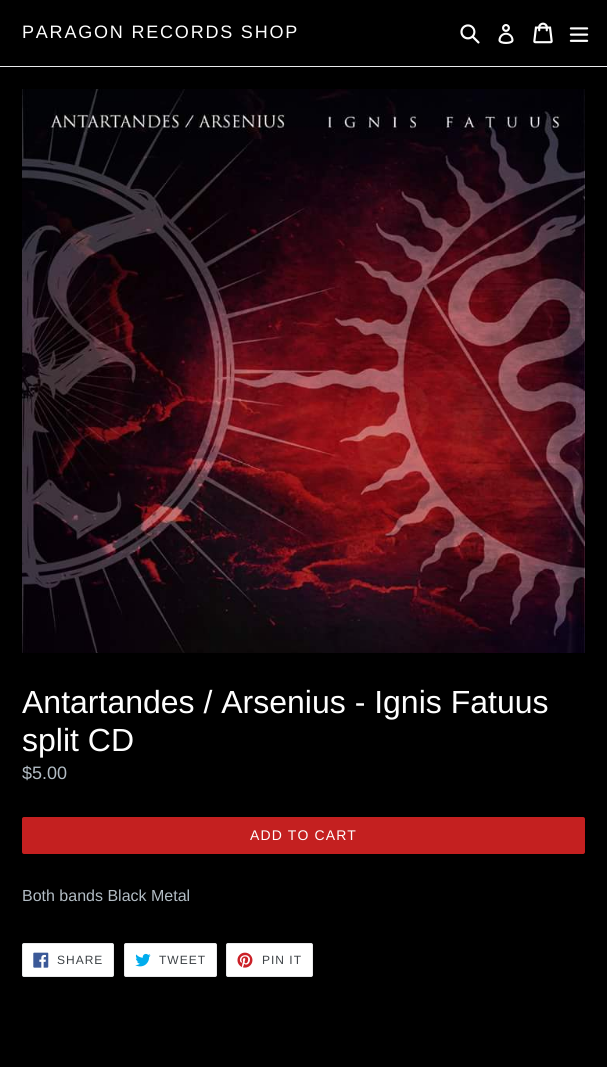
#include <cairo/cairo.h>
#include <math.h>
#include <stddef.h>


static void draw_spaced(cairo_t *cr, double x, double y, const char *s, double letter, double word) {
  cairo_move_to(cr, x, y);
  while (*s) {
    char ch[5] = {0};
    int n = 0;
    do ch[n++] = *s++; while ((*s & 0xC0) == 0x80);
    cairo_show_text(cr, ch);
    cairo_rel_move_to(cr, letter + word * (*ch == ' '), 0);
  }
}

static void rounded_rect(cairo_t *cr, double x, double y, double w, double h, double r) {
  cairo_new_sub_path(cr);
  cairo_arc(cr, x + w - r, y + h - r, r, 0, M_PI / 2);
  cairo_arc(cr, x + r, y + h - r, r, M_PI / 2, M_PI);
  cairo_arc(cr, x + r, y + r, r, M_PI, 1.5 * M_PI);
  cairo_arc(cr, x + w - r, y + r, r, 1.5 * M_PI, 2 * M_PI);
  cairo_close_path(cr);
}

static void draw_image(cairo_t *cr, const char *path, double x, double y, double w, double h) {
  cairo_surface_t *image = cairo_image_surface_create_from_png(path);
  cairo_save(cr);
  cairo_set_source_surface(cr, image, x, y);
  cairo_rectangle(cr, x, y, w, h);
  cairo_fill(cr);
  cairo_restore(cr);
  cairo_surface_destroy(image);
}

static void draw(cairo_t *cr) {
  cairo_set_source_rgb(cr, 0, 0, 0);
  cairo_paint(cr);
  cairo_set_source_rgb(cr, 232 / 255.0, 233 / 255.0, 235 / 255.0);
  cairo_rectangle(cr, 0, 66, 607, 1);
  cairo_fill(cr);
  draw_image(cr, "images/1.png", 460, 24, 20, 20);
  draw_image(cr, "images/2.png", 498, 24, 16, 20);
  draw_image(cr, "images/3.png", 533, 22, 20, 22);
  draw_image(cr, "images/4.png", 569, 27, 20, 15);
  draw_image(cr, "images/5.png", 22, 89, 563, 564);
  cairo_set_source_rgb(cr, 196 / 255.0, 32 / 255.0, 32 / 255.0);
  rounded_rect(cr, 22, 817, 563, 37, 2);
  cairo_fill(cr);
  cairo_set_source_rgb(cr, 1, 1, 1);
  rounded_rect(cr, 22.5, 943.5, 91, 33, 1.5);
  cairo_fill_preserve(cr);
  cairo_set_source_rgb(cr, 232 / 255.0, 233 / 255.0, 235 / 255.0);
  cairo_set_line_width(cr, 1);
  cairo_stroke(cr);
  draw_image(cr, "images/6.png", 33, 952, 16, 16);
  cairo_set_source_rgb(cr, 1, 1, 1);
  rounded_rect(cr, 124.5, 943.5, 92, 33, 1.5);
  cairo_fill_preserve(cr);
  cairo_set_source_rgb(cr, 232 / 255.0, 233 / 255.0, 235 / 255.0);
  cairo_stroke(cr);
  draw_image(cr, "images/7.png", 135, 953, 16, 14);
  cairo_set_source_rgb(cr, 1, 1, 1);
  rounded_rect(cr, 226.5, 943.5, 86, 33, 1.5);
  cairo_fill_preserve(cr);
  cairo_set_source_rgb(cr, 232 / 255.0, 233 / 255.0, 235 / 255.0);
  cairo_stroke(cr);
  draw_image(cr, "images/8.png", 237, 952, 16, 16);
  cairo_select_font_face(cr, "Liberation Sans", CAIRO_FONT_SLANT_NORMAL, CAIRO_FONT_WEIGHT_NORMAL);
  cairo_set_font_size(cr, 18);
  cairo_set_source_rgb(cr, 254 / 255.0, 254 / 255.0, 254 / 255.0);
  draw_spaced(cr, 22, 38, "PARAGON RECORDS SHOP", 1.8, 0);
  cairo_set_font_size(cr, 32);
  cairo_move_to(cr, 22, 713);
  cairo_show_text(cr, "Antartandes / Arsenius - Ignis Fatuus");
  cairo_move_to(cr, 22, 751);
  cairo_show_text(cr, "split CD");
  cairo_set_font_size(cr, 18);
  cairo_set_source_rgb(cr, 178 / 255.0, 188 / 255.0, 196 / 255.0);
  cairo_move_to(cr, 22, 779);
  cairo_show_text(cr, "$5.00");
  cairo_set_font_size(cr, 14);
  cairo_set_source_rgb(cr, 254 / 255.0, 254 / 255.0, 254 / 255.0);
  draw_spaced(cr, 250, 840, "ADD TO CART", 1.1, 0);
  cairo_set_font_size(cr, 16);
  cairo_set_source_rgb(cr, 178 / 255.0, 188 / 255.0, 196 / 255.0);
  cairo_move_to(cr, 22, 901);
  cairo_show_text(cr, "Both bands Black Metal");
  cairo_set_font_size(cr, 12);
  cairo_set_source_rgb(cr, 61 / 255.0, 66 / 255.0, 70 / 255.0);
  draw_spaced(cr, 57, 964, "SHARE", 1, 0);
  draw_spaced(cr, 159, 964, "TWEET", 1, 0);
  draw_spaced(cr, 262, 964, "PIN IT", 1, 0);
}

int main(void) {
  cairo_surface_t *surface = cairo_image_surface_create(CAIRO_FORMAT_RGB24, 607, 1067);
  cairo_t *cr = cairo_create(surface);
  cairo_font_options_t *options = cairo_font_options_create();
  cairo_font_options_set_hint_metrics(options, CAIRO_HINT_METRICS_OFF);
  cairo_font_options_set_hint_style(options, CAIRO_HINT_STYLE_NONE);
  cairo_set_font_options(cr, options);
  cairo_set_miter_limit(cr, 4);
  draw(cr);
  cairo_surface_write_to_png(surface, "out.png");
  cairo_font_options_destroy(options);
  cairo_destroy(cr);
  cairo_surface_destroy(surface);
  return 0;
}
